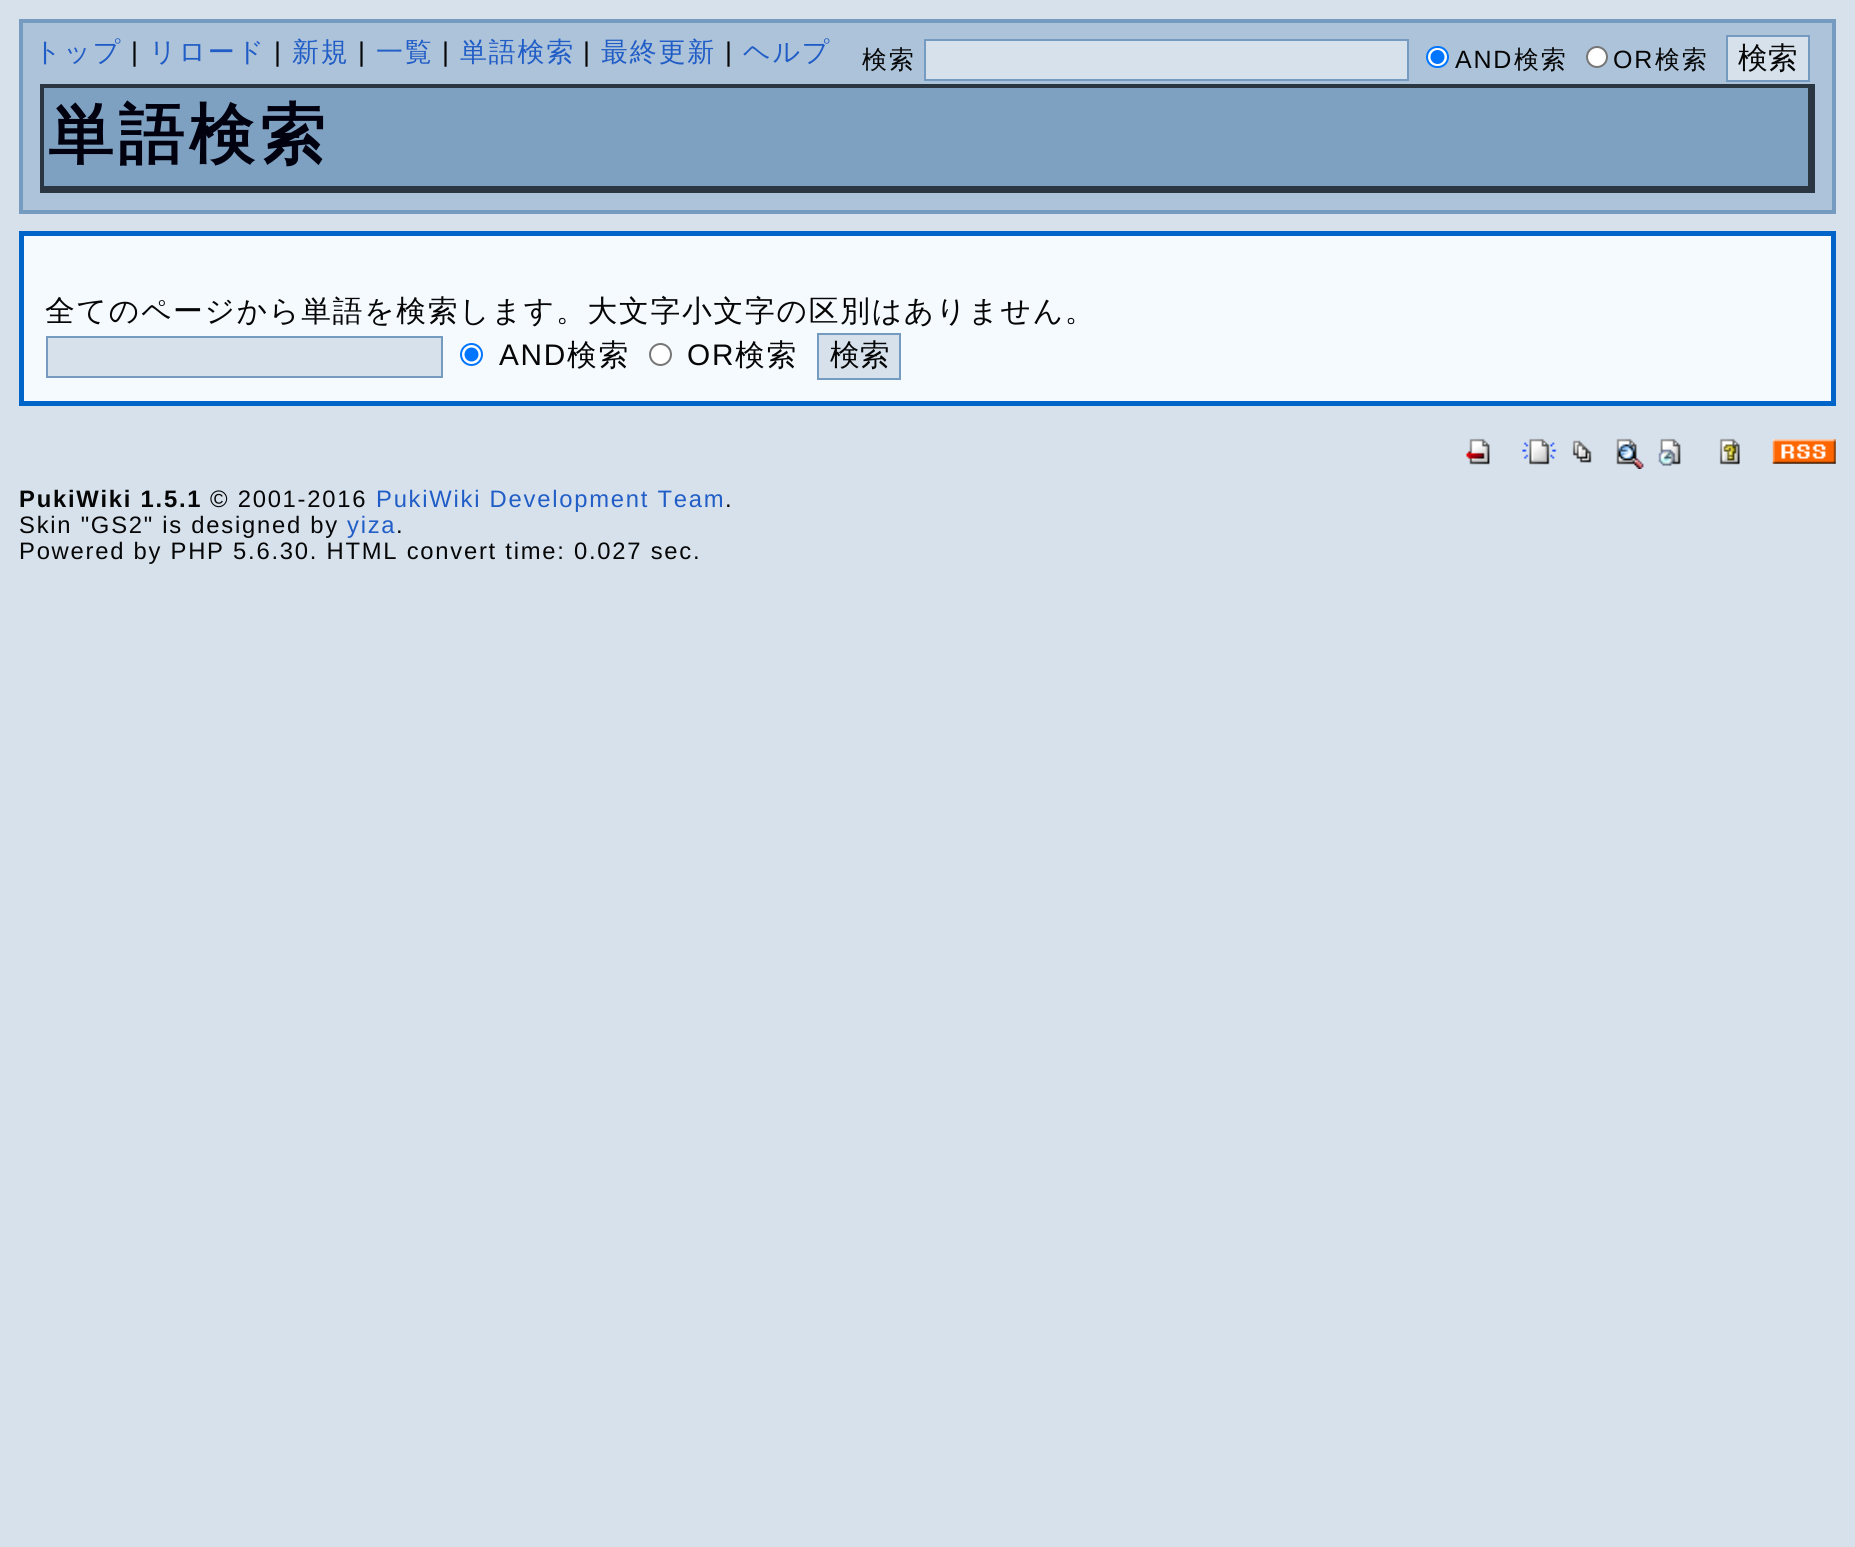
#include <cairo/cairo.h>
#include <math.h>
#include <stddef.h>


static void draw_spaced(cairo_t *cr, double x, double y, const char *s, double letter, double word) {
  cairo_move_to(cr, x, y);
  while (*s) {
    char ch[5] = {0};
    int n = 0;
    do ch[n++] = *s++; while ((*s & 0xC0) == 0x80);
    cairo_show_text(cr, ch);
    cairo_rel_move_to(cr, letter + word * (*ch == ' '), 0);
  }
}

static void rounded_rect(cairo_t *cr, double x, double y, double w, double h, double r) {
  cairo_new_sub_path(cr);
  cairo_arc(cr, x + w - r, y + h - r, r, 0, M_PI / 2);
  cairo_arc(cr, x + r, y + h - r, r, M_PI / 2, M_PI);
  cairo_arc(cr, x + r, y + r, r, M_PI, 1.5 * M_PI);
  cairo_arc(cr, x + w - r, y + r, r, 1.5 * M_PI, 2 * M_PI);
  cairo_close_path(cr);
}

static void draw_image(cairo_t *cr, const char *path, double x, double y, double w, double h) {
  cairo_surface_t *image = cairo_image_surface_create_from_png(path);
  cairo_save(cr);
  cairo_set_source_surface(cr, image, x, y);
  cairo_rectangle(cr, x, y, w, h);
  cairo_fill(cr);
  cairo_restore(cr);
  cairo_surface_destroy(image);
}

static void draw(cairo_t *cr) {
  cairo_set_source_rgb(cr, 214 / 255.0, 225 / 255.0, 236 / 255.0);
  cairo_paint(cr);
  cairo_set_source_rgb(cr, 173 / 255.0, 195 / 255.0, 217 / 255.0);
  cairo_rectangle(cr, 21, 21, 1813, 191);
  cairo_fill_preserve(cr);
  cairo_set_source_rgb(cr, 118 / 255.0, 155 / 255.0, 192 / 255.0);
  cairo_set_line_width(cr, 4);
  cairo_stroke(cr);
  cairo_set_source_rgb(cr, 214 / 255.0, 225 / 255.0, 236 / 255.0);
  cairo_rectangle(cr, 925, 40, 483, 40);
  cairo_fill_preserve(cr);
  cairo_set_source_rgb(cr, 118 / 255.0, 155 / 255.0, 192 / 255.0);
  cairo_set_line_width(cr, 2);
  cairo_stroke(cr);
  cairo_set_source_rgb(cr, 1, 1, 1);
  rounded_rect(cr, 1427, 47, 21, 20, 10);
  cairo_fill_preserve(cr);
  cairo_set_source_rgb(cr, 0, 117 / 255.0, 1);
  cairo_stroke(cr);
  cairo_arc(cr, 1437.5, 57, 7, 0, 2 * M_PI);
  cairo_fill(cr);
  cairo_set_source_rgb(cr, 1, 1, 1);
  cairo_arc(cr, 1597, 57, 10, 0, 2 * M_PI);
  cairo_fill_preserve(cr);
  cairo_set_source_rgb(cr, 118 / 255.0, 118 / 255.0, 118 / 255.0);
  cairo_stroke(cr);
  cairo_set_source_rgb(cr, 214 / 255.0, 225 / 255.0, 236 / 255.0);
  cairo_rectangle(cr, 1727, 36, 82, 45);
  cairo_fill_preserve(cr);
  cairo_set_source_rgb(cr, 118 / 255.0, 155 / 255.0, 192 / 255.0);
  cairo_stroke(cr);
  cairo_set_source_rgb(cr, 126 / 255.0, 161 / 255.0, 194 / 255.0);
  cairo_rectangle(cr, 44, 88, 1764, 98);
  cairo_fill(cr);
  cairo_set_source_rgb(cr, 43 / 255.0, 54 / 255.0, 67 / 255.0);
  cairo_rectangle(cr, 40, 84, 1775, 4);
  cairo_fill(cr);
  cairo_rectangle(cr, 1808, 84, 7, 109);
  cairo_fill(cr);
  cairo_rectangle(cr, 40, 186, 1775, 7);
  cairo_fill(cr);
  cairo_rectangle(cr, 40, 84, 4, 109);
  cairo_fill(cr);
  cairo_set_source_rgb(cr, 245 / 255.0, 250 / 255.0, 1);
  cairo_rectangle(cr, 21.5, 233.5, 1812, 170);
  cairo_fill_preserve(cr);
  cairo_set_source_rgb(cr, 0, 100 / 255.0, 200 / 255.0);
  cairo_set_line_width(cr, 5);
  cairo_stroke(cr);
  cairo_set_source_rgb(cr, 214 / 255.0, 225 / 255.0, 236 / 255.0);
  cairo_rectangle(cr, 47, 337, 395, 40);
  cairo_fill_preserve(cr);
  cairo_set_source_rgb(cr, 118 / 255.0, 155 / 255.0, 192 / 255.0);
  cairo_set_line_width(cr, 2);
  cairo_stroke(cr);
  cairo_set_source_rgb(cr, 1, 1, 1);
  cairo_arc(cr, 471.5, 354.5, 10.5, 0, 2 * M_PI);
  cairo_fill_preserve(cr);
  cairo_set_source_rgb(cr, 0, 117 / 255.0, 1);
  cairo_stroke(cr);
  cairo_arc(cr, 471.5, 354.5, 7, 0, 2 * M_PI);
  cairo_fill(cr);
  cairo_set_source_rgb(cr, 1, 1, 1);
  cairo_arc(cr, 660.5, 354.5, 10.5, 0, 2 * M_PI);
  cairo_fill_preserve(cr);
  cairo_set_source_rgb(cr, 118 / 255.0, 118 / 255.0, 118 / 255.0);
  cairo_stroke(cr);
  cairo_set_source_rgb(cr, 214 / 255.0, 225 / 255.0, 236 / 255.0);
  cairo_rectangle(cr, 818, 334, 82, 45);
  cairo_fill_preserve(cr);
  cairo_set_source_rgb(cr, 118 / 255.0, 155 / 255.0, 192 / 255.0);
  cairo_stroke(cr);
  draw_image(cr, "images/1.png", 1466, 438, 24, 27);
  draw_image(cr, "images/2.png", 1522, 438, 35, 27);
  draw_image(cr, "images/3.png", 1572, 440, 20, 23);
  draw_image(cr, "images/4.png", 1616, 438, 28, 31);
  draw_image(cr, "images/5.png", 1658, 438, 23, 28);
  draw_image(cr, "images/6.png", 1719, 438, 21, 27);
  draw_image(cr, "images/7.png", 1772, 439, 64, 25);
  cairo_select_font_face(cr, "WenQuanYi Zen Hei Medium", CAIRO_FONT_SLANT_NORMAL, CAIRO_FONT_WEIGHT_NORMAL);
  cairo_set_font_size(cr, 27);
  cairo_set_source_rgb(cr, 33 / 255.0, 93 / 255.0, 198 / 255.0);
  draw_spaced(cr, 34, 61, "トップ", 1.75, 0);
  cairo_select_font_face(cr, "Liberation Sans", CAIRO_FONT_SLANT_NORMAL, CAIRO_FONT_WEIGHT_NORMAL);
  cairo_set_source_rgb(cr, 6 / 255.0, 6 / 255.0, 6 / 255.0);
  draw_spaced(cr, 131, 61, "|", 1.75, 0);
  cairo_select_font_face(cr, "WenQuanYi Zen Hei Medium", CAIRO_FONT_SLANT_NORMAL, CAIRO_FONT_WEIGHT_NORMAL);
  cairo_set_source_rgb(cr, 33 / 255.0, 93 / 255.0, 198 / 255.0);
  draw_spaced(cr, 149, 61, "リロード", 1.75, 0);
  cairo_select_font_face(cr, "Liberation Sans", CAIRO_FONT_SLANT_NORMAL, CAIRO_FONT_WEIGHT_NORMAL);
  cairo_set_source_rgb(cr, 6 / 255.0, 6 / 255.0, 6 / 255.0);
  draw_spaced(cr, 274, 61, "|", 1.75, 0);
  cairo_select_font_face(cr, "WenQuanYi Zen Hei Medium", CAIRO_FONT_SLANT_NORMAL, CAIRO_FONT_WEIGHT_NORMAL);
  cairo_set_source_rgb(cr, 33 / 255.0, 93 / 255.0, 198 / 255.0);
  draw_spaced(cr, 292, 61, "新規", 1.75, 0);
  cairo_select_font_face(cr, "Liberation Sans", CAIRO_FONT_SLANT_NORMAL, CAIRO_FONT_WEIGHT_NORMAL);
  cairo_set_source_rgb(cr, 6 / 255.0, 6 / 255.0, 6 / 255.0);
  draw_spaced(cr, 358, 61, "|", 1.75, 0);
  cairo_select_font_face(cr, "WenQuanYi Zen Hei Medium", CAIRO_FONT_SLANT_NORMAL, CAIRO_FONT_WEIGHT_NORMAL);
  cairo_set_source_rgb(cr, 33 / 255.0, 93 / 255.0, 198 / 255.0);
  draw_spaced(cr, 376, 61, "一覧", 1.75, 0);
  cairo_select_font_face(cr, "Liberation Sans", CAIRO_FONT_SLANT_NORMAL, CAIRO_FONT_WEIGHT_NORMAL);
  cairo_set_source_rgb(cr, 6 / 255.0, 6 / 255.0, 6 / 255.0);
  draw_spaced(cr, 442, 61, "|", 1.75, 0);
  cairo_select_font_face(cr, "WenQuanYi Zen Hei Medium", CAIRO_FONT_SLANT_NORMAL, CAIRO_FONT_WEIGHT_NORMAL);
  cairo_set_source_rgb(cr, 33 / 255.0, 93 / 255.0, 198 / 255.0);
  draw_spaced(cr, 460, 61, "単語検索", 1.75, 0);
  cairo_select_font_face(cr, "Liberation Sans", CAIRO_FONT_SLANT_NORMAL, CAIRO_FONT_WEIGHT_NORMAL);
  cairo_set_source_rgb(cr, 6 / 255.0, 6 / 255.0, 6 / 255.0);
  draw_spaced(cr, 583, 61, "|", 1.75, 0);
  cairo_select_font_face(cr, "WenQuanYi Zen Hei Medium", CAIRO_FONT_SLANT_NORMAL, CAIRO_FONT_WEIGHT_NORMAL);
  cairo_set_source_rgb(cr, 33 / 255.0, 93 / 255.0, 198 / 255.0);
  draw_spaced(cr, 601, 61, "最終更新", 1.75, 0);
  cairo_select_font_face(cr, "Liberation Sans", CAIRO_FONT_SLANT_NORMAL, CAIRO_FONT_WEIGHT_NORMAL);
  cairo_set_source_rgb(cr, 6 / 255.0, 6 / 255.0, 6 / 255.0);
  draw_spaced(cr, 725, 61, "|", 1.75, 0);
  cairo_select_font_face(cr, "WenQuanYi Zen Hei Medium", CAIRO_FONT_SLANT_NORMAL, CAIRO_FONT_WEIGHT_NORMAL);
  cairo_set_source_rgb(cr, 33 / 255.0, 93 / 255.0, 198 / 255.0);
  draw_spaced(cr, 743, 61, "ヘルプ", 1.75, 0);
  cairo_set_font_size(cr, 25);
  cairo_set_source_rgb(cr, 6 / 255.0, 6 / 255.0, 6 / 255.0);
  draw_spaced(cr, 862, 68, "検索", 1.75, 0);
  cairo_select_font_face(cr, "Liberation Sans", CAIRO_FONT_SLANT_NORMAL, CAIRO_FONT_WEIGHT_NORMAL);
  draw_spaced(cr, 1455, 68, "AND", 1.75, 0);
  cairo_select_font_face(cr, "WenQuanYi Zen Hei Medium", CAIRO_FONT_SLANT_NORMAL, CAIRO_FONT_WEIGHT_NORMAL);
  draw_spaced(cr, 1514, 68, "検索", 1.75, 0);
  cairo_select_font_face(cr, "Liberation Sans", CAIRO_FONT_SLANT_NORMAL, CAIRO_FONT_WEIGHT_NORMAL);
  draw_spaced(cr, 1613, 68, "OR", 1.75, 0);
  cairo_select_font_face(cr, "WenQuanYi Zen Hei Medium", CAIRO_FONT_SLANT_NORMAL, CAIRO_FONT_WEIGHT_NORMAL);
  draw_spaced(cr, 1655, 68, "検索", 1.75, 0);
  cairo_set_font_size(cr, 29.75);
  cairo_move_to(cr, 1738, 68);
  cairo_show_text(cr, "検索");
  cairo_select_font_face(cr, "WenQuanYi Zen Hei", CAIRO_FONT_SLANT_NORMAL, CAIRO_FONT_WEIGHT_BOLD);
  cairo_set_font_size(cr, 65.5);
  cairo_set_source_rgb(cr, 0, 0, 15 / 255.0);
  draw_spaced(cr, 48, 157, "単語検索", 5, 0);
  cairo_select_font_face(cr, "WenQuanYi Zen Hei Medium", CAIRO_FONT_SLANT_NORMAL, CAIRO_FONT_WEIGHT_NORMAL);
  cairo_set_font_size(cr, 29.75);
  cairo_set_source_rgb(cr, 6 / 255.0, 6 / 255.0, 6 / 255.0);
  draw_spaced(cr, 45, 321, "全てのページから単語を検索します。大文字小文字の区別はありません。", 1.75, 0);
  cairo_select_font_face(cr, "Liberation Sans", CAIRO_FONT_SLANT_NORMAL, CAIRO_FONT_WEIGHT_NORMAL);
  draw_spaced(cr, 499, 365, "AND", 1.75, 0);
  cairo_select_font_face(cr, "WenQuanYi Zen Hei Medium", CAIRO_FONT_SLANT_NORMAL, CAIRO_FONT_WEIGHT_NORMAL);
  draw_spaced(cr, 567, 365, "検索", 1.75, 0);
  cairo_select_font_face(cr, "Liberation Sans", CAIRO_FONT_SLANT_NORMAL, CAIRO_FONT_WEIGHT_NORMAL);
  draw_spaced(cr, 687, 365, "OR", 1.75, 0);
  cairo_select_font_face(cr, "WenQuanYi Zen Hei Medium", CAIRO_FONT_SLANT_NORMAL, CAIRO_FONT_WEIGHT_NORMAL);
  draw_spaced(cr, 735, 365, "検索", 1.75, 0);
  cairo_move_to(cr, 830, 365);
  cairo_show_text(cr, "検索");
  cairo_select_font_face(cr, "Liberation Sans", CAIRO_FONT_SLANT_NORMAL, CAIRO_FONT_WEIGHT_BOLD);
  cairo_set_font_size(cr, 23.8);
  draw_spaced(cr, 19, 507, "PukiWiki 1.5.1", 1.75, 0);
  cairo_select_font_face(cr, "Liberation Sans", CAIRO_FONT_SLANT_NORMAL, CAIRO_FONT_WEIGHT_NORMAL);
  draw_spaced(cr, 210, 507, "© 2001-2016", 1.75, 0);
  cairo_set_source_rgb(cr, 33 / 255.0, 93 / 255.0, 198 / 255.0);
  draw_spaced(cr, 376, 507, "PukiWiki Development Team", 1.75, 0);
  cairo_set_source_rgb(cr, 6 / 255.0, 6 / 255.0, 6 / 255.0);
  draw_spaced(cr, 725, 507, ".", 1.75, 0);
  draw_spaced(cr, 19, 533, "Skin \"GS2\" is designed by", 1.75, 0);
  cairo_set_source_rgb(cr, 33 / 255.0, 93 / 255.0, 198 / 255.0);
  draw_spaced(cr, 347, 533, "yiza", 1.75, 0);
  cairo_set_source_rgb(cr, 6 / 255.0, 6 / 255.0, 6 / 255.0);
  draw_spaced(cr, 396, 533, ".", 1.75, 0);
  draw_spaced(cr, 19, 559, "Powered by PHP 5.6.30. HTML convert time: 0.027 sec.", 1.75, 0);
}

int main(void) {
  cairo_surface_t *surface = cairo_image_surface_create(CAIRO_FORMAT_RGB24, 1855, 1547);
  cairo_t *cr = cairo_create(surface);
  cairo_font_options_t *options = cairo_font_options_create();
  cairo_font_options_set_hint_metrics(options, CAIRO_HINT_METRICS_OFF);
  cairo_font_options_set_hint_style(options, CAIRO_HINT_STYLE_NONE);
  cairo_set_font_options(cr, options);
  cairo_set_miter_limit(cr, 4);
  draw(cr);
  cairo_surface_write_to_png(surface, "out.png");
  cairo_font_options_destroy(options);
  cairo_destroy(cr);
  cairo_surface_destroy(surface);
  return 0;
}
